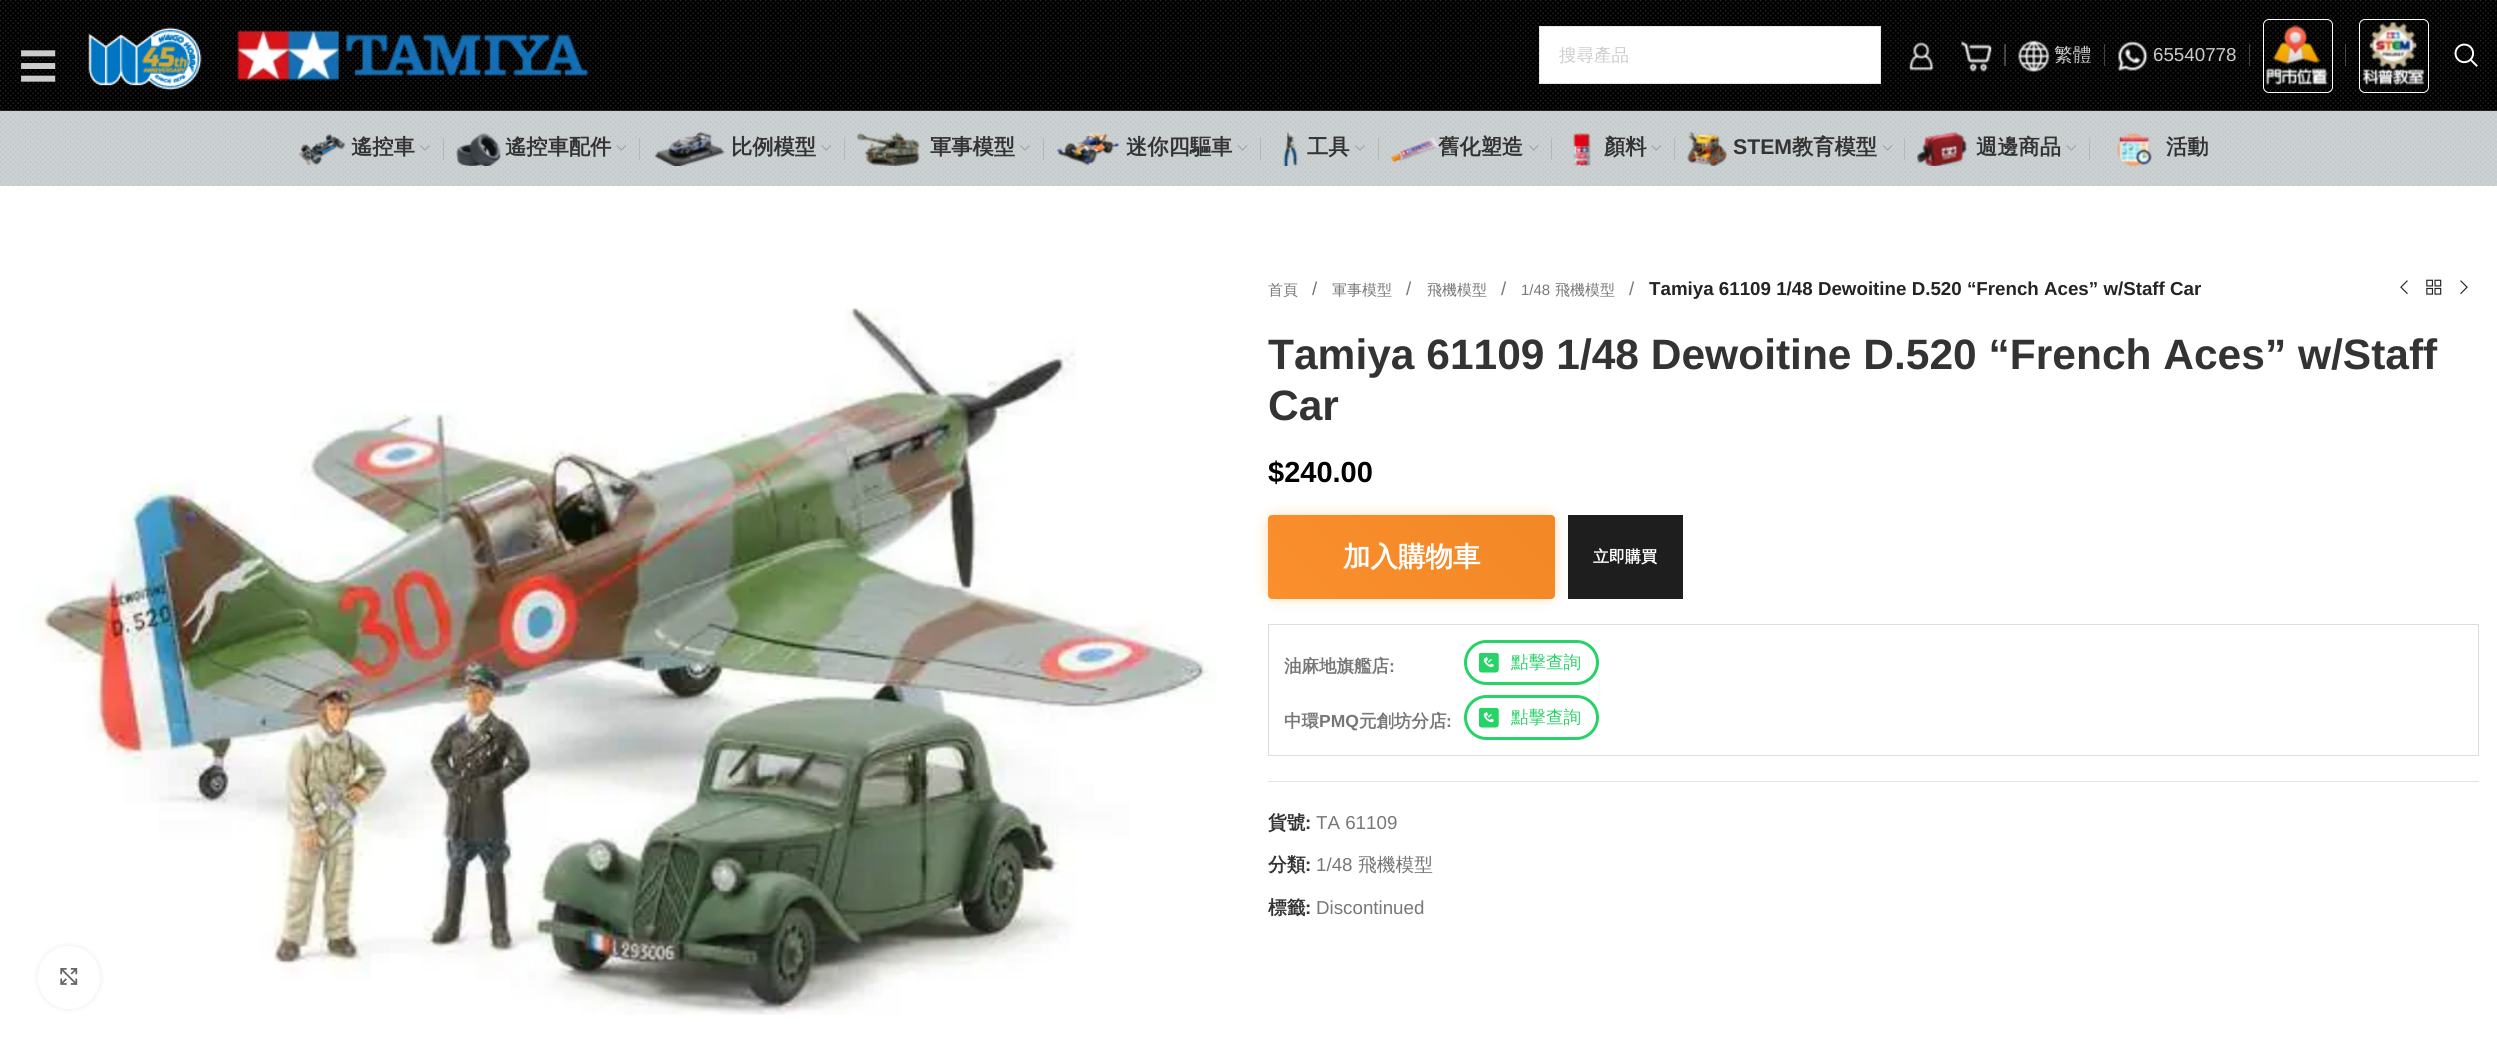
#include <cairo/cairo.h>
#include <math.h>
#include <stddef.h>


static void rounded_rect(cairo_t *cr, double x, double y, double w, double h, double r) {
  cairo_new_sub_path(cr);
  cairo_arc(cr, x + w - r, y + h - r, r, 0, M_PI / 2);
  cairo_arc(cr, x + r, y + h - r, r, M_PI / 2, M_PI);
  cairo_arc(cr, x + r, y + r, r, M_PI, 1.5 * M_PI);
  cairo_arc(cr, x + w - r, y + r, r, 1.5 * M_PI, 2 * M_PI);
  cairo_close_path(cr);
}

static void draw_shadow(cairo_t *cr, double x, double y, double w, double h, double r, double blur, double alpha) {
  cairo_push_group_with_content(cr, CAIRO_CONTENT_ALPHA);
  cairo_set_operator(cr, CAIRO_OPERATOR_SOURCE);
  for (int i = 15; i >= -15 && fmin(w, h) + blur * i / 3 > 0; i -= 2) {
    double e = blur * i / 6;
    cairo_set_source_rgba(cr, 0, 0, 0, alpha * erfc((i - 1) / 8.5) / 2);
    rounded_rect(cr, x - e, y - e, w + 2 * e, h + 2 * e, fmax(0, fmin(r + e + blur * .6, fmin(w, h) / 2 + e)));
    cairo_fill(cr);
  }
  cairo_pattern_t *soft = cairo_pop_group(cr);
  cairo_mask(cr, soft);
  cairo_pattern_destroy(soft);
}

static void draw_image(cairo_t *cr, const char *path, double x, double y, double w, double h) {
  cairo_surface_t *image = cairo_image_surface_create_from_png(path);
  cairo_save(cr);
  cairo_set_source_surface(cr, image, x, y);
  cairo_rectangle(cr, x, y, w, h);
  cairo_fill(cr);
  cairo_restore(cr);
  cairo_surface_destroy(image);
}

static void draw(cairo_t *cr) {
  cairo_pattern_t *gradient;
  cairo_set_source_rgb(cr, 1, 1, 1);
  cairo_paint(cr);
  draw_image(cr, "images/1.png", 0, 0, 2497, 111);
  cairo_set_source_rgba(cr, 129 / 255.0, 129 / 255.0, 129 / 255.0, 0.2);
  cairo_rectangle(cr, 0, 110, 2497, 1);
  cairo_fill(cr);
  draw_image(cr, "images/2.png", 88, 27, 114, 63);
  draw_image(cr, "images/3.png", 237, 30, 352, 51);
  cairo_set_source_rgb(cr, 1, 1, 1);
  cairo_rectangle(cr, 1539.5, 26.5, 341, 57);
  cairo_fill_preserve(cr);
  cairo_set_source_rgb(cr, 230 / 255.0, 230 / 255.0, 230 / 255.0);
  cairo_set_line_width(cr, 1);
  cairo_stroke(cr);
  draw_image(cr, "images/4.png", 1909, 42, 25, 29);
  draw_image(cr, "images/5.png", 1961, 40, 31, 32);
  cairo_set_source_rgb(cr, 64 / 255.0, 64 / 255.0, 64 / 255.0);
  cairo_rectangle(cr, 2004, 44, 1, 22);
  cairo_fill(cr);
  cairo_set_source_rgba(cr, 1, 1, 1, 0.25);
  cairo_rectangle(cr, 2005, 44, 1, 22);
  cairo_fill(cr);
  draw_image(cr, "images/6.png", 2018, 40, 32, 32);
  cairo_set_source_rgb(cr, 64 / 255.0, 64 / 255.0, 64 / 255.0);
  cairo_rectangle(cr, 2104, 44, 1, 22);
  cairo_fill(cr);
  draw_image(cr, "images/7.png", 2118, 41, 30, 30);
  cairo_rectangle(cr, 2249, 44, 1, 22);
  cairo_fill(cr);
  rounded_rect(cr, 2263.5, 19.5, 69, 73, 5.5);
  cairo_set_source_rgb(cr, 1, 1, 1);
  cairo_stroke(cr);
  draw_image(cr, "images/8.png", 2266, 24, 62, 62);
  cairo_set_source_rgba(cr, 1, 1, 1, 0.25);
  cairo_rectangle(cr, 2345, 44, 1, 22);
  cairo_fill(cr);
  rounded_rect(cr, 2359.5, 19.5, 69, 73, 5.5);
  cairo_set_source_rgb(cr, 1, 1, 1);
  cairo_stroke(cr);
  draw_image(cr, "images/9.png", 2362, 21, 63, 65);
  draw_image(cr, "images/10.png", 2454, 43, 24, 24);
  draw_image(cr, "images/11.png", 0, 111, 2497, 75);
  draw_image(cr, "images/12.png", 297, 133, 49, 33);
  draw_image(cr, "images/13.png", 420, 145, 10, 6);
  cairo_set_source_rgba(cr, 0, 0, 0, 0.11);
  cairo_rectangle(cr, 443, 138, 1, 22);
  cairo_fill(cr);
  draw_image(cr, "images/14.png", 456, 133, 45, 33);
  draw_image(cr, "images/15.png", 616, 145, 10, 6);
  cairo_set_source_rgb(cr, 181 / 255.0, 186 / 255.0, 188 / 255.0);
  cairo_rectangle(cr, 639, 138, 1, 22);
  cairo_fill(cr);
  draw_image(cr, "images/16.png", 654, 132, 71, 34);
  draw_image(cr, "images/15.png", 821, 145, 10, 6);
  cairo_rectangle(cr, 844, 138, 1, 22);
  cairo_fill(cr);
  draw_image(cr, "images/17.png", 857, 132, 63, 34);
  draw_image(cr, "images/13.png", 1020, 145, 10, 6);
  cairo_set_source_rgba(cr, 0, 0, 0, 0.11);
  cairo_rectangle(cr, 1043, 138, 1, 22);
  cairo_fill(cr);
  draw_image(cr, "images/18.png", 1056, 132, 64, 34);
  draw_image(cr, "images/19.png", 1237, 145, 11, 6);
  cairo_rectangle(cr, 1260, 138, 1, 22);
  cairo_fill(cr);
  draw_image(cr, "images/20.png", 1283, 132, 15, 34);
  draw_image(cr, "images/21.png", 1355, 145, 10, 6);
  cairo_rectangle(cr, 1378, 138, 1, 22);
  cairo_fill(cr);
  draw_image(cr, "images/22.png", 1391, 137, 48, 26);
  draw_image(cr, "images/23.png", 1529, 145, 10, 6);
  cairo_rectangle(cr, 1551, 138, 1, 22);
  cairo_fill(cr);
  draw_image(cr, "images/24.png", 1573, 133, 18, 33);
  draw_image(cr, "images/25.png", 1651, 145, 10, 6);
  cairo_set_source_rgb(cr, 181 / 255.0, 186 / 255.0, 188 / 255.0);
  cairo_rectangle(cr, 1674, 138, 1, 22);
  cairo_fill(cr);
  draw_image(cr, "images/26.png", 1687, 132, 40, 34);
  draw_image(cr, "images/27.png", 1882, 145, 11, 6);
  cairo_rectangle(cr, 1904, 138, 1, 22);
  cairo_fill(cr);
  draw_image(cr, "images/28.png", 1917, 132, 50, 34);
  draw_image(cr, "images/25.png", 2066, 145, 10, 6);
  cairo_rectangle(cr, 2089, 138, 1, 22);
  cairo_fill(cr);
  draw_image(cr, "images/29.png", 2117, 133, 35, 33);
  draw_image(cr, "images/30.png", 19, 307, 1198, 708);
  cairo_set_source_rgb(cr, 0, 0, 0);
  draw_shadow(cr, 38, 946, 62, 63, 31, 3, 0.08);
  cairo_set_source_rgb(cr, 1, 1, 1);
  rounded_rect(cr, 38, 946, 62, 63, 31);
  cairo_fill(cr);
  draw_image(cr, "images/31.png", 60, 968, 18, 17);
  draw_image(cr, "images/32.png", 2400, 280, 8, 14);
  draw_image(cr, "images/33.png", 2426, 279, 16, 16);
  draw_image(cr, "images/34.png", 2460, 280, 8, 15);
  cairo_set_source_rgb(cr, 240 / 255.0, 152 / 255.0, 25 / 255.0);
  draw_shadow(cr, 1276, 524, 270, 66, 0, 9, 1);
  gradient = cairo_pattern_create_linear(1390, 722, 1720, 392);
  cairo_pattern_add_color_stop_rgba(gradient, 0, 251 / 255.0, 143 / 255.0, 46 / 255.0, 1);
  cairo_pattern_add_color_stop_rgba(gradient, 0.51, 243 / 255.0, 136 / 255.0, 39 / 255.0, 1);
  cairo_pattern_add_color_stop_rgba(gradient, 1, 242 / 255.0, 128 / 255.0, 26 / 255.0, 1);
  cairo_set_source(cr, gradient);
  cairo_pattern_destroy(gradient);
  rounded_rect(cr, 1268, 515, 287, 84, 4);
  cairo_fill(cr);
  cairo_set_source_rgb(cr, 30 / 255.0, 30 / 255.0, 30 / 255.0);
  cairo_rectangle(cr, 1568, 515, 115, 84);
  cairo_fill(cr);
  cairo_rectangle(cr, 1268.5, 624.5, 1210, 131);
  cairo_set_source_rgb(cr, 221 / 255.0, 221 / 255.0, 221 / 255.0);
  cairo_stroke(cr);
  rounded_rect(cr, 1465.5, 641.5, 132, 42, 21);
  cairo_set_source_rgb(cr, 37 / 255.0, 211 / 255.0, 102 / 255.0);
  cairo_set_line_width(cr, 3);
  cairo_stroke(cr);
  draw_image(cr, "images/35.png", 1479, 653, 20, 20);
  rounded_rect(cr, 1465.5, 696.5, 132, 42, 21);
  cairo_stroke(cr);
  draw_image(cr, "images/35.png", 1479, 708, 20, 20);
  cairo_set_source_rgb(cr, 228 / 255.0, 228 / 255.0, 228 / 255.0);
  cairo_rectangle(cr, 1268, 781, 1211, 1);
  cairo_fill(cr);
  cairo_select_font_face(cr, "WenQuanYi Zen Hei Medium", CAIRO_FONT_SLANT_NORMAL, CAIRO_FONT_WEIGHT_NORMAL);
  cairo_set_font_size(cr, 38);
  cairo_set_source_rgb(cr, 204 / 255.0, 204 / 255.0, 204 / 255.0);
  cairo_move_to(cr, 19, 80);
  cairo_show_text(cr, "☰");
  cairo_set_font_size(cr, 17.5);
  cairo_move_to(cr, 1559, 61);
  cairo_show_text(cr, "搜尋產品");
  cairo_set_font_size(cr, 18.75);
  cairo_move_to(cr, 2054, 61);
  cairo_show_text(cr, "繁體");
  cairo_select_font_face(cr, "Liberation Sans", CAIRO_FONT_SLANT_NORMAL, CAIRO_FONT_WEIGHT_NORMAL);
  cairo_move_to(cr, 2153, 61);
  cairo_show_text(cr, "65540778");
  cairo_select_font_face(cr, "WenQuanYi Zen Hei", CAIRO_FONT_SLANT_NORMAL, CAIRO_FONT_WEIGHT_BOLD);
  cairo_set_font_size(cr, 21.25);
  cairo_set_source_rgb(cr, 51 / 255.0, 51 / 255.0, 51 / 255.0);
  cairo_move_to(cr, 351, 154);
  cairo_show_text(cr, "遙控車");
  cairo_move_to(cr, 505, 154);
  cairo_show_text(cr, "遙控車配件");
  cairo_move_to(cr, 731, 154);
  cairo_show_text(cr, "比例模型");
  cairo_move_to(cr, 930, 154);
  cairo_show_text(cr, "軍事模型");
  cairo_move_to(cr, 1126, 154);
  cairo_show_text(cr, "迷你四驅車");
  cairo_move_to(cr, 1307, 154);
  cairo_show_text(cr, "工具");
  cairo_move_to(cr, 1438, 154);
  cairo_show_text(cr, "舊化塑造");
  cairo_move_to(cr, 1604, 154);
  cairo_show_text(cr, "顏料");
  cairo_select_font_face(cr, "Liberation Sans", CAIRO_FONT_SLANT_NORMAL, CAIRO_FONT_WEIGHT_BOLD);
  cairo_move_to(cr, 1733, 154);
  cairo_show_text(cr, "STEM");
  cairo_select_font_face(cr, "WenQuanYi Zen Hei", CAIRO_FONT_SLANT_NORMAL, CAIRO_FONT_WEIGHT_BOLD);
  cairo_move_to(cr, 1792, 154);
  cairo_show_text(cr, "教育模型");
  cairo_move_to(cr, 1976, 154);
  cairo_show_text(cr, "週邊商品");
  cairo_move_to(cr, 2166, 154);
  cairo_show_text(cr, "活動");
  cairo_select_font_face(cr, "WenQuanYi Zen Hei Medium", CAIRO_FONT_SLANT_NORMAL, CAIRO_FONT_WEIGHT_NORMAL);
  cairo_set_font_size(cr, 15);
  cairo_set_source_rgb(cr, 119 / 255.0, 119 / 255.0, 119 / 255.0);
  cairo_move_to(cr, 1268, 295);
  cairo_show_text(cr, "首頁");
  cairo_select_font_face(cr, "Liberation Sans", CAIRO_FONT_SLANT_NORMAL, CAIRO_FONT_WEIGHT_NORMAL);
  cairo_set_font_size(cr, 18.75);
  cairo_move_to(cr, 1312, 295);
  cairo_show_text(cr, "/");
  cairo_select_font_face(cr, "WenQuanYi Zen Hei Medium", CAIRO_FONT_SLANT_NORMAL, CAIRO_FONT_WEIGHT_NORMAL);
  cairo_set_font_size(cr, 15);
  cairo_move_to(cr, 1332, 295);
  cairo_show_text(cr, "軍事模型");
  cairo_select_font_face(cr, "Liberation Sans", CAIRO_FONT_SLANT_NORMAL, CAIRO_FONT_WEIGHT_NORMAL);
  cairo_set_font_size(cr, 18.75);
  cairo_move_to(cr, 1406, 295);
  cairo_show_text(cr, "/");
  cairo_select_font_face(cr, "WenQuanYi Zen Hei Medium", CAIRO_FONT_SLANT_NORMAL, CAIRO_FONT_WEIGHT_NORMAL);
  cairo_set_font_size(cr, 15);
  cairo_move_to(cr, 1427, 295);
  cairo_show_text(cr, "飛機模型");
  cairo_select_font_face(cr, "Liberation Sans", CAIRO_FONT_SLANT_NORMAL, CAIRO_FONT_WEIGHT_NORMAL);
  cairo_set_font_size(cr, 18.75);
  cairo_move_to(cr, 1501, 295);
  cairo_show_text(cr, "/");
  cairo_set_font_size(cr, 15);
  cairo_move_to(cr, 1521, 295);
  cairo_show_text(cr, "1/48");
  cairo_select_font_face(cr, "WenQuanYi Zen Hei Medium", CAIRO_FONT_SLANT_NORMAL, CAIRO_FONT_WEIGHT_NORMAL);
  cairo_move_to(cr, 1555, 295);
  cairo_show_text(cr, "飛機模型");
  cairo_select_font_face(cr, "Liberation Sans", CAIRO_FONT_SLANT_NORMAL, CAIRO_FONT_WEIGHT_NORMAL);
  cairo_set_font_size(cr, 18.75);
  cairo_move_to(cr, 1629, 295);
  cairo_show_text(cr, "/");
  cairo_select_font_face(cr, "Liberation Sans", CAIRO_FONT_SLANT_NORMAL, CAIRO_FONT_WEIGHT_BOLD);
  cairo_set_source_rgb(cr, 36 / 255.0, 36 / 255.0, 36 / 255.0);
  cairo_move_to(cr, 1649, 295);
  cairo_show_text(cr, "Tamiya 61109 1/48 Dewoitine D.520 “French Aces” w/Staff Car");
  cairo_set_font_size(cr, 42.5);
  cairo_set_source_rgb(cr, 51 / 255.0, 51 / 255.0, 51 / 255.0);
  cairo_move_to(cr, 1268, 369);
  cairo_show_text(cr, "Tamiya 61109 1/48 Dewoitine D.520 “French Aces” w/Staff");
  cairo_move_to(cr, 1268, 420);
  cairo_show_text(cr, "Car");
  cairo_set_font_size(cr, 29);
  cairo_set_source_rgb(cr, 0, 0, 0);
  cairo_move_to(cr, 1268, 482);
  cairo_show_text(cr, "$240.00");
  cairo_select_font_face(cr, "WenQuanYi Zen Hei", CAIRO_FONT_SLANT_NORMAL, CAIRO_FONT_WEIGHT_BOLD);
  cairo_set_font_size(cr, 27.5);
  cairo_set_source_rgb(cr, 1, 1, 1);
  cairo_move_to(cr, 1343, 566);
  cairo_show_text(cr, "加入購物車");
  cairo_set_font_size(cr, 16);
  cairo_move_to(cr, 1593, 562);
  cairo_show_text(cr, "立即購買");
  cairo_set_font_size(cr, 17.5);
  cairo_set_source_rgb(cr, 119 / 255.0, 119 / 255.0, 119 / 255.0);
  cairo_move_to(cr, 1284, 672);
  cairo_show_text(cr, "油麻地旗艦店");
  cairo_select_font_face(cr, "Liberation Sans", CAIRO_FONT_SLANT_NORMAL, CAIRO_FONT_WEIGHT_BOLD);
  cairo_move_to(cr, 1389, 672);
  cairo_show_text(cr, ":");
  cairo_select_font_face(cr, "WenQuanYi Zen Hei Medium", CAIRO_FONT_SLANT_NORMAL, CAIRO_FONT_WEIGHT_NORMAL);
  cairo_set_source_rgb(cr, 37 / 255.0, 211 / 255.0, 102 / 255.0);
  cairo_move_to(cr, 1511, 668);
  cairo_show_text(cr, "點擊查詢");
  cairo_select_font_face(cr, "WenQuanYi Zen Hei", CAIRO_FONT_SLANT_NORMAL, CAIRO_FONT_WEIGHT_BOLD);
  cairo_set_source_rgb(cr, 119 / 255.0, 119 / 255.0, 119 / 255.0);
  cairo_move_to(cr, 1284, 727);
  cairo_show_text(cr, "中環");
  cairo_select_font_face(cr, "Liberation Sans", CAIRO_FONT_SLANT_NORMAL, CAIRO_FONT_WEIGHT_BOLD);
  cairo_move_to(cr, 1319, 727);
  cairo_show_text(cr, "PMQ");
  cairo_select_font_face(cr, "WenQuanYi Zen Hei", CAIRO_FONT_SLANT_NORMAL, CAIRO_FONT_WEIGHT_BOLD);
  cairo_move_to(cr, 1359, 727);
  cairo_show_text(cr, "元創坊分店");
  cairo_select_font_face(cr, "Liberation Sans", CAIRO_FONT_SLANT_NORMAL, CAIRO_FONT_WEIGHT_BOLD);
  cairo_move_to(cr, 1446, 727);
  cairo_show_text(cr, ":");
  cairo_select_font_face(cr, "WenQuanYi Zen Hei Medium", CAIRO_FONT_SLANT_NORMAL, CAIRO_FONT_WEIGHT_NORMAL);
  cairo_set_source_rgb(cr, 37 / 255.0, 211 / 255.0, 102 / 255.0);
  cairo_move_to(cr, 1511, 723);
  cairo_show_text(cr, "點擊查詢");
  cairo_select_font_face(cr, "WenQuanYi Zen Hei", CAIRO_FONT_SLANT_NORMAL, CAIRO_FONT_WEIGHT_BOLD);
  cairo_set_font_size(cr, 18.75);
  cairo_set_source_rgb(cr, 51 / 255.0, 51 / 255.0, 51 / 255.0);
  cairo_move_to(cr, 1268, 829);
  cairo_show_text(cr, "貨號");
  cairo_select_font_face(cr, "Liberation Sans", CAIRO_FONT_SLANT_NORMAL, CAIRO_FONT_WEIGHT_BOLD);
  cairo_move_to(cr, 1305, 829);
  cairo_show_text(cr, ":");
  cairo_select_font_face(cr, "Liberation Sans", CAIRO_FONT_SLANT_NORMAL, CAIRO_FONT_WEIGHT_NORMAL);
  cairo_set_source_rgb(cr, 119 / 255.0, 119 / 255.0, 119 / 255.0);
  cairo_move_to(cr, 1316, 829);
  cairo_show_text(cr, "TA 61109");
  cairo_select_font_face(cr, "WenQuanYi Zen Hei", CAIRO_FONT_SLANT_NORMAL, CAIRO_FONT_WEIGHT_BOLD);
  cairo_set_source_rgb(cr, 51 / 255.0, 51 / 255.0, 51 / 255.0);
  cairo_move_to(cr, 1268, 871);
  cairo_show_text(cr, "分類");
  cairo_select_font_face(cr, "Liberation Sans", CAIRO_FONT_SLANT_NORMAL, CAIRO_FONT_WEIGHT_BOLD);
  cairo_move_to(cr, 1305, 871);
  cairo_show_text(cr, ":");
  cairo_select_font_face(cr, "Liberation Sans", CAIRO_FONT_SLANT_NORMAL, CAIRO_FONT_WEIGHT_NORMAL);
  cairo_set_source_rgb(cr, 119 / 255.0, 119 / 255.0, 119 / 255.0);
  cairo_move_to(cr, 1316, 871);
  cairo_show_text(cr, "1/48");
  cairo_select_font_face(cr, "WenQuanYi Zen Hei Medium", CAIRO_FONT_SLANT_NORMAL, CAIRO_FONT_WEIGHT_NORMAL);
  cairo_move_to(cr, 1358, 871);
  cairo_show_text(cr, "飛機模型");
  cairo_select_font_face(cr, "WenQuanYi Zen Hei", CAIRO_FONT_SLANT_NORMAL, CAIRO_FONT_WEIGHT_BOLD);
  cairo_set_source_rgb(cr, 51 / 255.0, 51 / 255.0, 51 / 255.0);
  cairo_move_to(cr, 1268, 914);
  cairo_show_text(cr, "標籤");
  cairo_select_font_face(cr, "Liberation Sans", CAIRO_FONT_SLANT_NORMAL, CAIRO_FONT_WEIGHT_BOLD);
  cairo_move_to(cr, 1305, 914);
  cairo_show_text(cr, ":");
  cairo_select_font_face(cr, "Liberation Sans", CAIRO_FONT_SLANT_NORMAL, CAIRO_FONT_WEIGHT_NORMAL);
  cairo_set_source_rgb(cr, 119 / 255.0, 119 / 255.0, 119 / 255.0);
  cairo_move_to(cr, 1316, 914);
  cairo_show_text(cr, "Discontinued");
}

int main(void) {
  cairo_surface_t *surface = cairo_image_surface_create(CAIRO_FORMAT_RGB24, 2497, 1063);
  cairo_t *cr = cairo_create(surface);
  cairo_font_options_t *options = cairo_font_options_create();
  cairo_font_options_set_hint_metrics(options, CAIRO_HINT_METRICS_OFF);
  cairo_font_options_set_hint_style(options, CAIRO_HINT_STYLE_NONE);
  cairo_set_font_options(cr, options);
  cairo_set_miter_limit(cr, 4);
  draw(cr);
  cairo_surface_write_to_png(surface, "out.png");
  cairo_font_options_destroy(options);
  cairo_destroy(cr);
  cairo_surface_destroy(surface);
  return 0;
}
